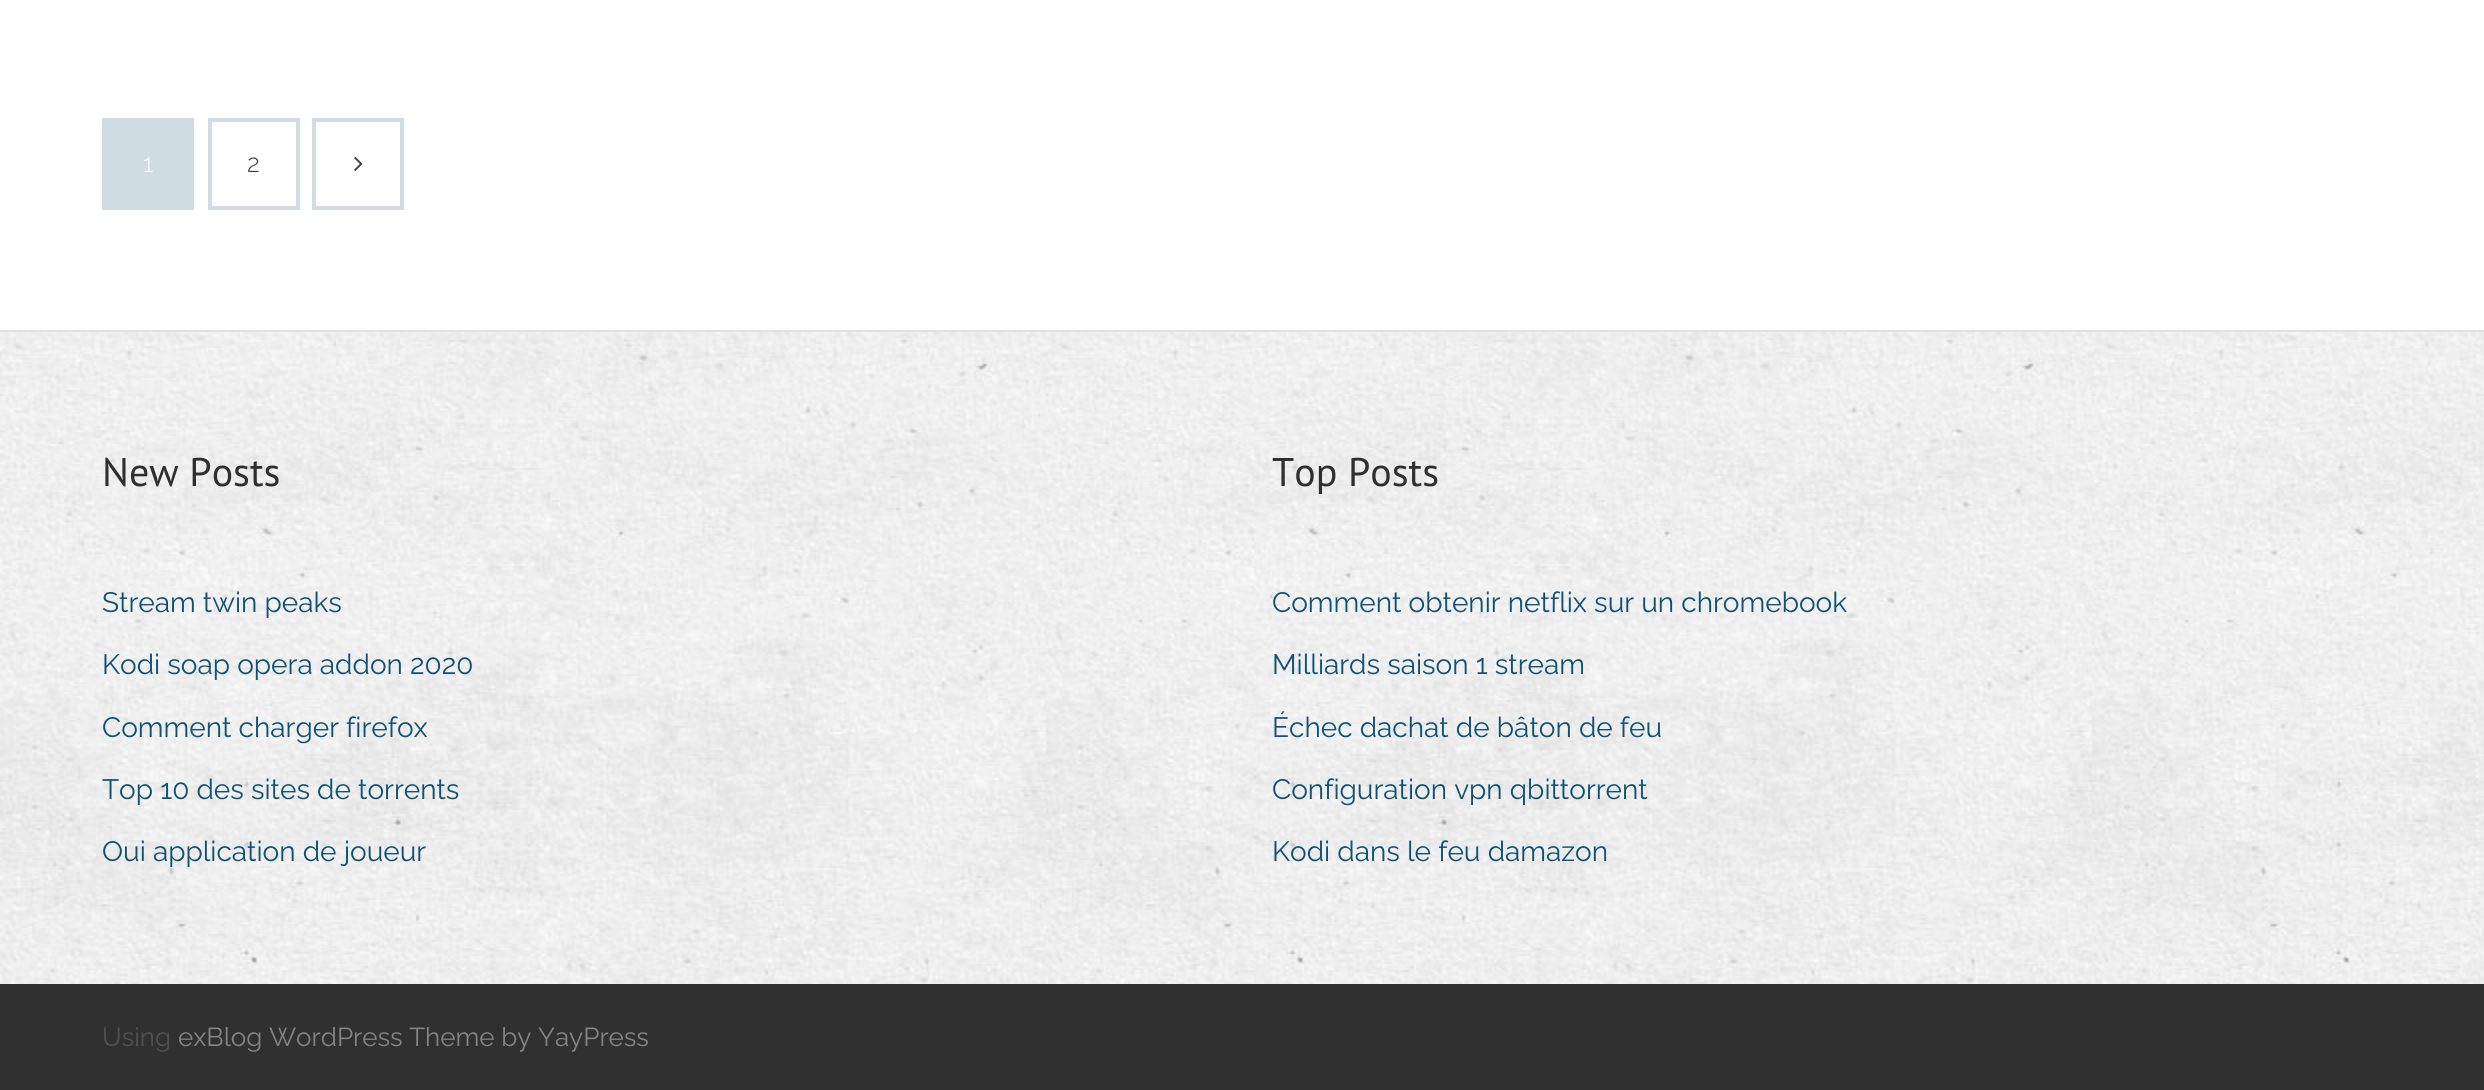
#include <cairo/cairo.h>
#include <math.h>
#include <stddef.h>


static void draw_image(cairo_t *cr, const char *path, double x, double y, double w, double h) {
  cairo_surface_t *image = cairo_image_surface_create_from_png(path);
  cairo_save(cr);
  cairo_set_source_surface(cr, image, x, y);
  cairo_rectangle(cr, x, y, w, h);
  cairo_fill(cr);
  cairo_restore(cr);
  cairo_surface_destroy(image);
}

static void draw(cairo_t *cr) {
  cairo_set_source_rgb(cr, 1, 1, 1);
  cairo_paint(cr);
  cairo_rectangle(cr, 104, 120, 88, 88);
  cairo_set_source_rgb(cr, 207 / 255.0, 220 / 255.0, 227 / 255.0);
  cairo_set_line_width(cr, 4);
  cairo_stroke(cr);
  cairo_rectangle(cr, 106, 122, 84, 84);
  cairo_fill(cr);
  cairo_rectangle(cr, 210, 120, 88, 88);
  cairo_stroke(cr);
  cairo_rectangle(cr, 314, 120, 88, 88);
  cairo_stroke(cr);
  draw_image(cr, "images/1.png", 354, 156, 9, 15);
  draw_image(cr, "images/2.png", 0, 332, 2484, 652);
  cairo_set_source_rgb(cr, 225 / 255.0, 225 / 255.0, 225 / 255.0);
  cairo_rectangle(cr, 0, 330, 2484, 2);
  cairo_fill(cr);
  cairo_set_source_rgb(cr, 48 / 255.0, 48 / 255.0, 48 / 255.0);
  cairo_rectangle(cr, 0, 984, 2484, 106);
  cairo_fill(cr);
  cairo_select_font_face(cr, "Raleway Light", CAIRO_FONT_SLANT_NORMAL, CAIRO_FONT_WEIGHT_NORMAL);
  cairo_set_font_size(cr, 25);
  cairo_set_source_rgb(cr, 1, 1, 1);
  cairo_move_to(cr, 143, 172);
  cairo_show_text(cr, "1");
  cairo_set_source_rgb(cr, 61 / 255.0, 61 / 255.0, 61 / 255.0);
  cairo_move_to(cr, 247, 172);
  cairo_show_text(cr, "2");
  cairo_select_font_face(cr, "PT Sans", CAIRO_FONT_SLANT_NORMAL, CAIRO_FONT_WEIGHT_NORMAL);
  cairo_set_font_size(cr, 40);
  cairo_set_source_rgb(cr, 47 / 255.0, 47 / 255.0, 47 / 255.0);
  cairo_move_to(cr, 102, 486);
  cairo_show_text(cr, "New Posts");
  cairo_select_font_face(cr, "Raleway", CAIRO_FONT_SLANT_NORMAL, CAIRO_FONT_WEIGHT_NORMAL);
  cairo_set_font_size(cr, 28);
  cairo_set_source_rgb(cr, 17 / 255.0, 81 / 255.0, 114 / 255.0);
  cairo_move_to(cr, 102, 612);
  cairo_show_text(cr, "Stream twin peaks");
  cairo_move_to(cr, 102, 674);
  cairo_show_text(cr, "Kodi soap opera addon 2020");
  cairo_move_to(cr, 102, 737);
  cairo_show_text(cr, "Comment charger firefox");
  cairo_move_to(cr, 102, 799);
  cairo_show_text(cr, "Top 10 des sites de torrents");
  cairo_move_to(cr, 102, 861);
  cairo_show_text(cr, "Oui application de joueur");
  cairo_select_font_face(cr, "PT Sans", CAIRO_FONT_SLANT_NORMAL, CAIRO_FONT_WEIGHT_NORMAL);
  cairo_set_font_size(cr, 40);
  cairo_set_source_rgb(cr, 47 / 255.0, 47 / 255.0, 47 / 255.0);
  cairo_move_to(cr, 1272, 486);
  cairo_show_text(cr, "Top Posts");
  cairo_select_font_face(cr, "Raleway", CAIRO_FONT_SLANT_NORMAL, CAIRO_FONT_WEIGHT_NORMAL);
  cairo_set_font_size(cr, 28);
  cairo_set_source_rgb(cr, 17 / 255.0, 81 / 255.0, 114 / 255.0);
  cairo_move_to(cr, 1272, 612);
  cairo_show_text(cr, "Comment obtenir netflix sur un chromebook");
  cairo_move_to(cr, 1272, 674);
  cairo_show_text(cr, "Milliards saison 1 stream");
  cairo_move_to(cr, 1272, 737);
  cairo_show_text(cr, "Échec dachat de bâton de feu");
  cairo_move_to(cr, 1272, 799);
  cairo_show_text(cr, "Configuration vpn qbittorrent");
  cairo_move_to(cr, 1272, 861);
  cairo_show_text(cr, "Kodi dans le feu damazon");
  cairo_set_font_size(cr, 26);
  cairo_set_source_rgb(cr, 80 / 255.0, 80 / 255.0, 80 / 255.0);
  cairo_move_to(cr, 102, 1046);
  cairo_show_text(cr, "Using");
  cairo_set_source_rgb(cr, 132 / 255.0, 132 / 255.0, 132 / 255.0);
  cairo_move_to(cr, 178, 1046);
  cairo_show_text(cr, "exBlog WordPress Theme by YayPress");
}

int main(void) {
  cairo_surface_t *surface = cairo_image_surface_create(CAIRO_FORMAT_RGB24, 2484, 1090);
  cairo_t *cr = cairo_create(surface);
  cairo_font_options_t *options = cairo_font_options_create();
  cairo_font_options_set_hint_metrics(options, CAIRO_HINT_METRICS_OFF);
  cairo_font_options_set_hint_style(options, CAIRO_HINT_STYLE_NONE);
  cairo_set_font_options(cr, options);
  cairo_set_miter_limit(cr, 4);
  draw(cr);
  cairo_surface_write_to_png(surface, "out.png");
  cairo_font_options_destroy(options);
  cairo_destroy(cr);
  cairo_surface_destroy(surface);
  return 0;
}
